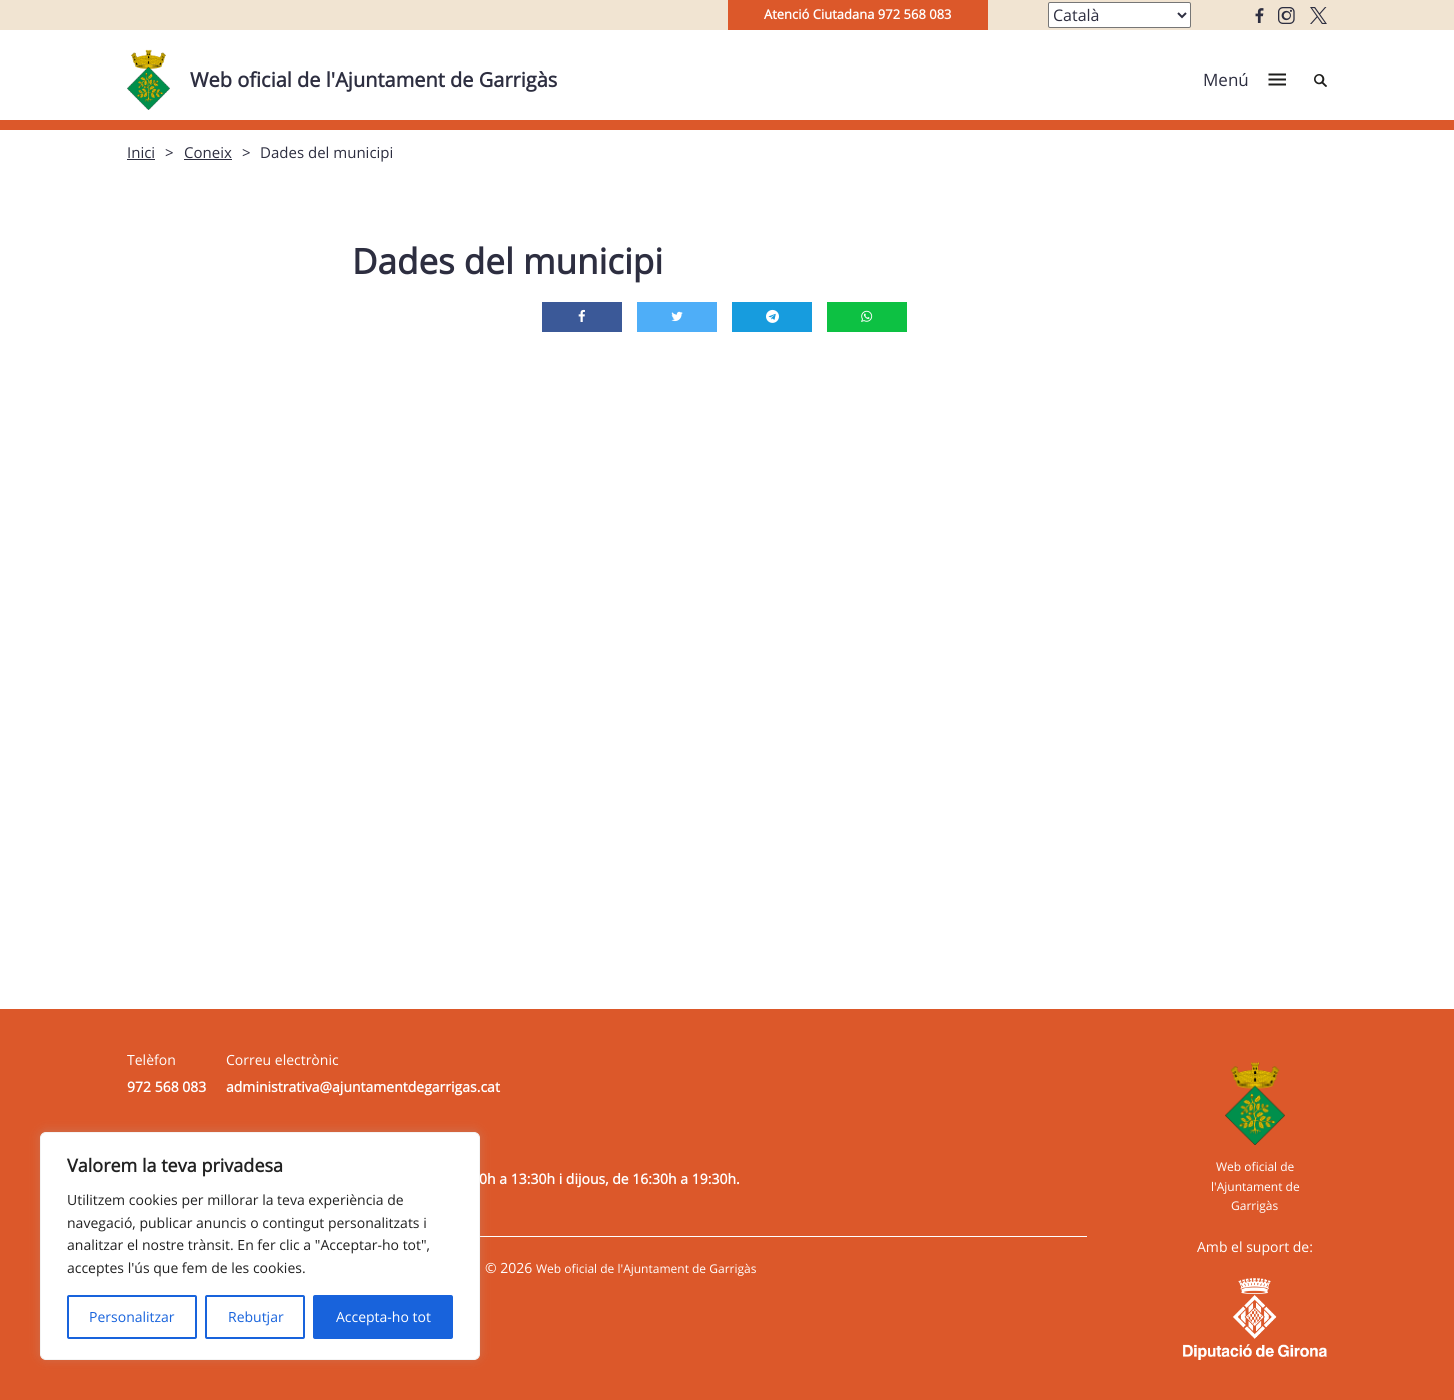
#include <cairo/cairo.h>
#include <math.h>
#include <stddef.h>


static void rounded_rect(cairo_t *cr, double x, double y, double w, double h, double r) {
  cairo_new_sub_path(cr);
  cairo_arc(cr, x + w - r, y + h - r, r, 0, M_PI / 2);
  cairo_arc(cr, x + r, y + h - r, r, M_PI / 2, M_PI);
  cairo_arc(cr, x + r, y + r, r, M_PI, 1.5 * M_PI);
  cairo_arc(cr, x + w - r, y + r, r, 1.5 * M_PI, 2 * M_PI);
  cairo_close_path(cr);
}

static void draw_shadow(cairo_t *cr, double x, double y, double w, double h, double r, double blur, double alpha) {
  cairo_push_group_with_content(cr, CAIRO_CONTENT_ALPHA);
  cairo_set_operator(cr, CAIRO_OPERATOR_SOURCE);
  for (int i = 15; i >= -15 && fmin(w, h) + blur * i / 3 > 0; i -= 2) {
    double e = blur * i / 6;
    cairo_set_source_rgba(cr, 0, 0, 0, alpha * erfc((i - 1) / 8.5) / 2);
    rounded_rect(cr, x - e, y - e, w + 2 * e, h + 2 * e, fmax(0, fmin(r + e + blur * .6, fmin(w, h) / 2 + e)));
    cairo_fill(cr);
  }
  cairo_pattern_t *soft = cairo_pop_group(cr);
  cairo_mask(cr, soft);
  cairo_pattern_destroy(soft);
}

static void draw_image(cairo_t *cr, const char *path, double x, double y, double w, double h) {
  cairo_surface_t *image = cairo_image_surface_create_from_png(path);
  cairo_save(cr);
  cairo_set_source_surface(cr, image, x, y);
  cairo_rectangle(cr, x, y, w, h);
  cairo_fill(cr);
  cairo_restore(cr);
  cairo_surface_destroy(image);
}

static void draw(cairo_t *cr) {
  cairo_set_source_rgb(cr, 1, 1, 1);
  cairo_paint(cr);
  cairo_set_source_rgb(cr, 220 / 255.0, 88 / 255.0, 42 / 255.0);
  cairo_rectangle(cr, 0, 120, 1454, 10);
  cairo_fill(cr);
  cairo_set_source_rgb(cr, 241 / 255.0, 228 / 255.0, 210 / 255.0);
  cairo_rectangle(cr, 0, 0, 1454, 30);
  cairo_fill(cr);
  cairo_set_source_rgb(cr, 220 / 255.0, 88 / 255.0, 42 / 255.0);
  cairo_rectangle(cr, 728, 0, 260, 30);
  cairo_fill(cr);
  cairo_set_source_rgb(cr, 1, 1, 1);
  rounded_rect(cr, 1048.5, 2.5, 142, 25, 1.5);
  cairo_fill_preserve(cr);
  cairo_set_source_rgb(cr, 118 / 255.0, 118 / 255.0, 118 / 255.0);
  cairo_set_line_width(cr, 1);
  cairo_stroke(cr);
  cairo_new_path(cr);
  cairo_move_to(cr, 1178, 13);
  cairo_line_to(cr, 1182, 17);
  cairo_line_to(cr, 1186, 13);
  cairo_set_source_rgb(cr, 45 / 255.0, 46 / 255.0, 64 / 255.0);
  cairo_set_line_width(cr, 2);
  cairo_stroke(cr);
  draw_image(cr, "images/1.png", 1255, 8, 9, 15);
  draw_image(cr, "images/2.png", 1278, 7, 17, 17);
  draw_image(cr, "images/3.png", 1310, 7, 17, 17);
  draw_image(cr, "images/4.png", 127, 49, 43, 61);
  cairo_new_path(cr);
  cairo_move_to(cr, 1268.5, 74.5);
  cairo_line_to(cr, 1286, 74.5);
  cairo_move_to(cr, 1268.5, 79.5);
  cairo_line_to(cr, 1286, 79.5);
  cairo_move_to(cr, 1268.5, 84.5);
  cairo_line_to(cr, 1286, 84.5);
  cairo_set_source_rgb(cr, 29 / 255.0, 29 / 255.0, 27 / 255.0);
  cairo_stroke(cr);
  draw_image(cr, "images/5.png", 1314, 74, 13, 13);
  cairo_set_source_rgb(cr, 45 / 255.0, 46 / 255.0, 64 / 255.0);
  cairo_rectangle(cr, 127, 159, 28, 1);
  cairo_fill(cr);
  cairo_rectangle(cr, 184, 159, 48, 1);
  cairo_fill(cr);
  cairo_set_source_rgb(cr, 59 / 255.0, 89 / 255.0, 152 / 255.0);
  cairo_rectangle(cr, 542, 302, 80, 30);
  cairo_fill(cr);
  draw_image(cr, "images/6.png", 578, 309, 7, 13);
  cairo_set_source_rgb(cr, 78 / 255.0, 174 / 255.0, 248 / 255.0);
  cairo_rectangle(cr, 637, 302, 80, 30);
  cairo_fill(cr);
  draw_image(cr, "images/7.png", 671, 311, 12, 11);
  cairo_set_source_rgb(cr, 23 / 255.0, 156 / 255.0, 222 / 255.0);
  cairo_rectangle(cr, 732, 302, 80, 30);
  cairo_fill(cr);
  draw_image(cr, "images/8.png", 766, 309, 13, 14);
  cairo_set_source_rgb(cr, 13 / 255.0, 193 / 255.0, 67 / 255.0);
  cairo_rectangle(cr, 827, 302, 80, 30);
  cairo_fill(cr);
  draw_image(cr, "images/9.png", 861, 310, 12, 12);
  cairo_set_source_rgb(cr, 220 / 255.0, 88 / 255.0, 42 / 255.0);
  cairo_rectangle(cr, 0, 1009, 1454, 391);
  cairo_fill(cr);
  draw_image(cr, "images/10.png", 1225, 1062, 60, 83);
  draw_image(cr, "images/11.png", 1183, 1278, 144, 82);
  cairo_set_source_rgb(cr, 1, 1, 1);
  cairo_rectangle(cr, 480, 1236, 607, 1);
  cairo_fill(cr);
  cairo_set_source_rgb(cr, 172 / 255.0, 171 / 255.0, 171 / 255.0);
  draw_shadow(cr, 40, 1131, 440, 228, 6, 5, 0.3);
  cairo_set_source_rgb(cr, 1, 1, 1);
  rounded_rect(cr, 40.5, 1132.5, 439, 227, 5.5);
  cairo_fill_preserve(cr);
  cairo_set_source_rgb(cr, 244 / 255.0, 244 / 255.0, 244 / 255.0);
  cairo_set_line_width(cr, 1);
  cairo_stroke(cr);
  rounded_rect(cr, 68, 1296, 128, 42, 1);
  cairo_set_source_rgb(cr, 24 / 255.0, 99 / 255.0, 220 / 255.0);
  cairo_set_line_width(cr, 2);
  cairo_stroke(cr);
  rounded_rect(cr, 206, 1296, 98, 42, 1);
  cairo_stroke(cr);
  rounded_rect(cr, 314, 1296, 138, 42, 1);
  cairo_fill_preserve(cr);
  cairo_stroke(cr);
  cairo_select_font_face(cr, "Open Sans", CAIRO_FONT_SLANT_NORMAL, CAIRO_FONT_WEIGHT_BOLD);
  cairo_set_font_size(cr, 13);
  cairo_set_source_rgb(cr, 1, 1, 1);
  cairo_move_to(cr, 764, 19);
  cairo_show_text(cr, "Atenció Ciutadana 972 568 083");
  cairo_select_font_face(cr, "Open Sans", CAIRO_FONT_SLANT_NORMAL, CAIRO_FONT_WEIGHT_NORMAL);
  cairo_set_font_size(cr, 16);
  cairo_set_source_rgb(cr, 45 / 255.0, 46 / 255.0, 64 / 255.0);
  cairo_move_to(cr, 1053, 21);
  cairo_show_text(cr, "Català");
  cairo_select_font_face(cr, "Open Sans", CAIRO_FONT_SLANT_NORMAL, CAIRO_FONT_WEIGHT_BOLD);
  cairo_set_font_size(cr, 20);
  cairo_move_to(cr, 190, 87);
  cairo_show_text(cr, "Web oficial de l'Ajuntament de Garrigàs");
  cairo_select_font_face(cr, "Open Sans", CAIRO_FONT_SLANT_NORMAL, CAIRO_FONT_WEIGHT_NORMAL);
  cairo_set_font_size(cr, 17);
  cairo_move_to(cr, 1203, 86);
  cairo_show_text(cr, "Menú");
  cairo_set_font_size(cr, 15);
  cairo_move_to(cr, 127, 158);
  cairo_show_text(cr, "Inici");
  cairo_move_to(cr, 165, 158);
  cairo_show_text(cr, ">");
  cairo_move_to(cr, 184, 158);
  cairo_show_text(cr, "Coneix");
  cairo_move_to(cr, 242, 158);
  cairo_show_text(cr, ">");
  cairo_move_to(cr, 260, 158);
  cairo_show_text(cr, "Dades del municipi");
  cairo_select_font_face(cr, "Open Sans", CAIRO_FONT_SLANT_NORMAL, CAIRO_FONT_WEIGHT_BOLD);
  cairo_set_font_size(cr, 35);
  cairo_move_to(cr, 352, 274);
  cairo_show_text(cr, "Dades del municipi");
  cairo_select_font_face(cr, "Open Sans", CAIRO_FONT_SLANT_NORMAL, CAIRO_FONT_WEIGHT_NORMAL);
  cairo_set_font_size(cr, 14);
  cairo_set_source_rgb(cr, 1, 1, 1);
  cairo_move_to(cr, 127, 1065);
  cairo_show_text(cr, "Telèfon");
  cairo_select_font_face(cr, "Open Sans", CAIRO_FONT_SLANT_NORMAL, CAIRO_FONT_WEIGHT_BOLD);
  cairo_move_to(cr, 127, 1092);
  cairo_show_text(cr, "972 568 083");
  cairo_select_font_face(cr, "Open Sans", CAIRO_FONT_SLANT_NORMAL, CAIRO_FONT_WEIGHT_NORMAL);
  cairo_move_to(cr, 226, 1065);
  cairo_show_text(cr, "Correu electrònic");
  cairo_select_font_face(cr, "Open Sans", CAIRO_FONT_SLANT_NORMAL, CAIRO_FONT_WEIGHT_BOLD);
  cairo_move_to(cr, 226, 1092);
  cairo_show_text(cr, "administrativa@ajuntamentdegarrigas.cat");
  cairo_move_to(cr, 479, 1184);
  cairo_show_text(cr, "0h a 13:30h i dijous, de 16:30h a 19:30h.");
  cairo_select_font_face(cr, "Open Sans", CAIRO_FONT_SLANT_NORMAL, CAIRO_FONT_WEIGHT_NORMAL);
  cairo_set_font_size(cr, 12);
  cairo_move_to(cr, 1216, 1171);
  cairo_show_text(cr, "Web oficial de");
  cairo_move_to(cr, 1211, 1191);
  cairo_show_text(cr, "l'Ajuntament de");
  cairo_move_to(cr, 1231, 1210);
  cairo_show_text(cr, "Garrigàs");
  cairo_set_font_size(cr, 14);
  cairo_move_to(cr, 1197, 1252);
  cairo_show_text(cr, "Amb el suport de:");
  cairo_move_to(cr, 485, 1273);
  cairo_show_text(cr, "© 2026");
  cairo_set_font_size(cr, 12);
  cairo_move_to(cr, 536, 1273);
  cairo_show_text(cr, "Web oficial de l'Ajuntament de Garrigàs");
  cairo_select_font_face(cr, "Open Sans", CAIRO_FONT_SLANT_NORMAL, CAIRO_FONT_WEIGHT_BOLD);
  cairo_set_font_size(cr, 18);
  cairo_set_source_rgb(cr, 33 / 255.0, 33 / 255.0, 33 / 255.0);
  cairo_move_to(cr, 67, 1172);
  cairo_show_text(cr, "Valorem la teva privadesa");
  cairo_select_font_face(cr, "Open Sans", CAIRO_FONT_SLANT_NORMAL, CAIRO_FONT_WEIGHT_NORMAL);
  cairo_set_font_size(cr, 14);
  cairo_move_to(cr, 67, 1205);
  cairo_show_text(cr, "Utilitzem cookies per millorar la teva experiència de");
  cairo_move_to(cr, 67, 1228);
  cairo_show_text(cr, "navegació, publicar anuncis o contingut personalitzats i");
  cairo_move_to(cr, 67, 1250);
  cairo_show_text(cr, "analitzar el nostre trànsit. En fer clic a \"Acceptar-ho tot\",");
  cairo_move_to(cr, 67, 1273);
  cairo_show_text(cr, "acceptes l'ús que fem de les cookies.");
  cairo_set_source_rgb(cr, 24 / 255.0, 99 / 255.0, 220 / 255.0);
  cairo_move_to(cr, 89, 1322);
  cairo_show_text(cr, "Personalitzar");
  cairo_move_to(cr, 228, 1322);
  cairo_show_text(cr, "Rebutjar");
  cairo_set_source_rgb(cr, 1, 1, 1);
  cairo_move_to(cr, 336, 1322);
  cairo_show_text(cr, "Accepta-ho tot");
}

int main(void) {
  cairo_surface_t *surface = cairo_image_surface_create(CAIRO_FORMAT_RGB24, 1454, 1400);
  cairo_t *cr = cairo_create(surface);
  cairo_font_options_t *options = cairo_font_options_create();
  cairo_font_options_set_hint_metrics(options, CAIRO_HINT_METRICS_OFF);
  cairo_font_options_set_hint_style(options, CAIRO_HINT_STYLE_NONE);
  cairo_set_font_options(cr, options);
  cairo_set_miter_limit(cr, 4);
  draw(cr);
  cairo_surface_write_to_png(surface, "out.png");
  cairo_font_options_destroy(options);
  cairo_destroy(cr);
  cairo_surface_destroy(surface);
  return 0;
}
